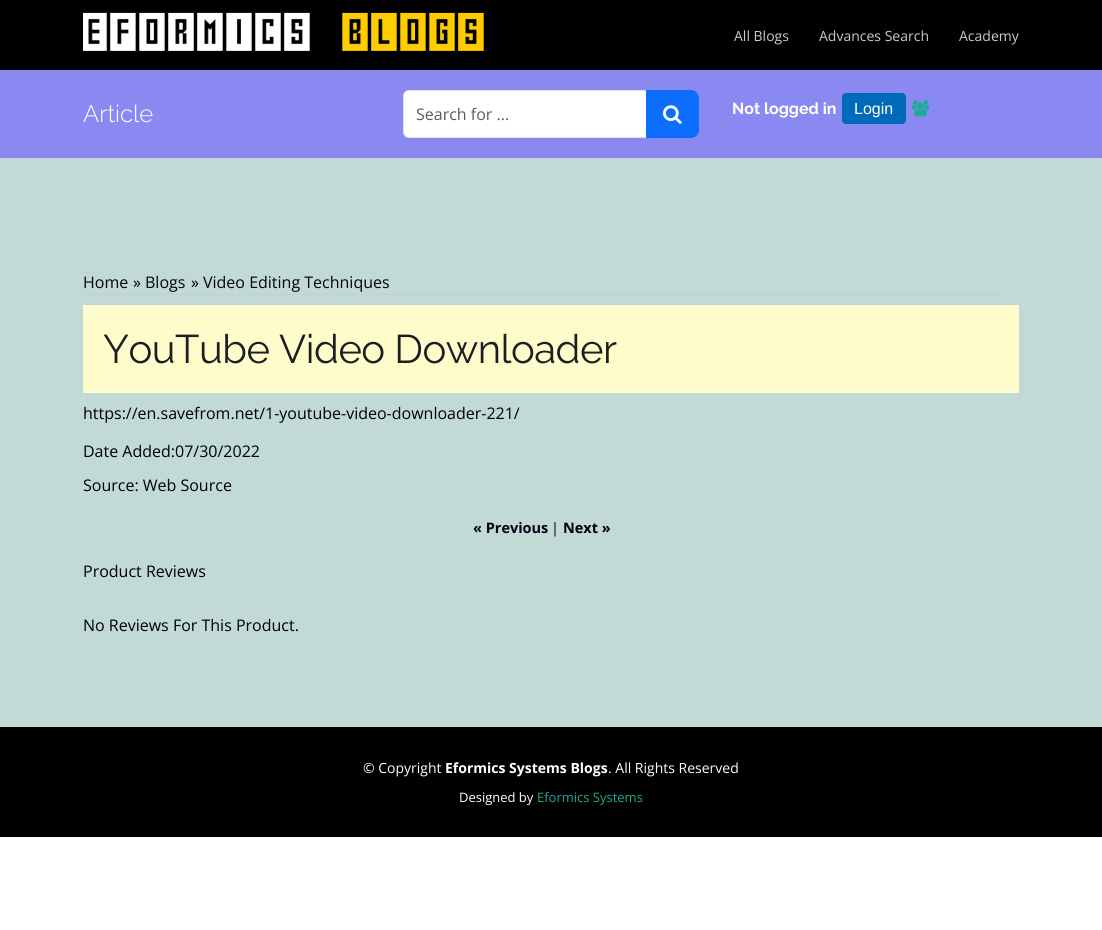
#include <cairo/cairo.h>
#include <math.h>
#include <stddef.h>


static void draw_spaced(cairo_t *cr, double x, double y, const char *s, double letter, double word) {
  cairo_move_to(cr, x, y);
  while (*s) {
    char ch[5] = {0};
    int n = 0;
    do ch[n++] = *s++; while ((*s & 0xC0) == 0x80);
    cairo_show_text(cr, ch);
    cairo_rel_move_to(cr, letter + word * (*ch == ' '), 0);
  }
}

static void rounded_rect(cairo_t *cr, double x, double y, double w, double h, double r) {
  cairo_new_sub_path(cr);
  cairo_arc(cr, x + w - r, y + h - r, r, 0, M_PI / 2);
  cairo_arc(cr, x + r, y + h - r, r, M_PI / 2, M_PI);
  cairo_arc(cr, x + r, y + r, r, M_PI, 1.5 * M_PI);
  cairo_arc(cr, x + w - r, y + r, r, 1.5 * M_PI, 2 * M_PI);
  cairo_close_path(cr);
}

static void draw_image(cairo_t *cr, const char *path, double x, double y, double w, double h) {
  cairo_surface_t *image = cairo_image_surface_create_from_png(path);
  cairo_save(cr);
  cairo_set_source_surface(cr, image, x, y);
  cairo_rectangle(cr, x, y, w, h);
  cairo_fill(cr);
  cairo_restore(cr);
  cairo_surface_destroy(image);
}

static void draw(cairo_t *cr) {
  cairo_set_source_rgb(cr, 1, 1, 1);
  cairo_paint(cr);
  cairo_set_source_rgb(cr, 0, 0, 0);
  cairo_rectangle(cr, 0, 0, 1102, 70);
  cairo_fill(cr);
  draw_image(cr, "images/1.png", 83, 12, 401, 39);
  cairo_set_source_rgb(cr, 137 / 255.0, 137 / 255.0, 241 / 255.0);
  cairo_rectangle(cr, 0, 70, 1102, 88);
  cairo_fill(cr);
  cairo_set_source_rgb(cr, 1, 1, 1);
  cairo_new_path(cr);
  cairo_move_to(cr, 409, 90.5);
  cairo_line_to(cr, 646.5, 90.5);
  cairo_line_to(cr, 646.5, 137.5);
  cairo_line_to(cr, 409, 137.5);
  cairo_curve_to(cr, 406, 137.5, 403.5, 135, 403.5, 132);
  cairo_line_to(cr, 403.5, 96);
  cairo_curve_to(cr, 403.5, 93, 406, 90.5, 409, 90.5);
  cairo_close_path(cr);
  cairo_fill_preserve(cr);
  cairo_set_source_rgb(cr, 222 / 255.0, 226 / 255.0, 230 / 255.0);
  cairo_set_line_width(cr, 1);
  cairo_stroke(cr);
  cairo_set_source_rgb(cr, 13 / 255.0, 110 / 255.0, 253 / 255.0);
  cairo_new_path(cr);
  cairo_move_to(cr, 646.5, 90.5);
  cairo_line_to(cr, 691, 90.5);
  cairo_curve_to(cr, 695, 90.5, 698.5, 94, 698.5, 98);
  cairo_line_to(cr, 698.5, 130);
  cairo_curve_to(cr, 698.5, 134, 695, 137.5, 691, 137.5);
  cairo_line_to(cr, 646.5, 137.5);
  cairo_close_path(cr);
  cairo_fill_preserve(cr);
  cairo_stroke(cr);
  draw_image(cr, "images/2.png", 663, 105, 19, 19);
  cairo_set_source_rgb(cr, 0, 106 / 255.0, 186 / 255.0);
  rounded_rect(cr, 842, 93, 64, 31, 4);
  cairo_fill(cr);
  draw_image(cr, "images/3.png", 912, 100, 18, 17);
  cairo_set_source_rgb(cr, 193 / 255.0, 218 / 255.0, 214 / 255.0);
  cairo_rectangle(cr, 0, 158, 1102, 569);
  cairo_fill(cr);
  cairo_set_source_rgb(cr, 204 / 255.0, 204 / 255.0, 204 / 255.0);
  cairo_rectangle(cr, 83, 294, 917, 1);
  cairo_fill(cr);
  cairo_set_source_rgb(cr, 1, 252 / 255.0, 204 / 255.0);
  cairo_rectangle(cr, 83, 305, 936, 88);
  cairo_fill(cr);
  cairo_set_source_rgb(cr, 0, 0, 0);
  cairo_rectangle(cr, 0, 727, 1102, 110);
  cairo_fill(cr);
  cairo_select_font_face(cr, "Open Sans", CAIRO_FONT_SLANT_NORMAL, CAIRO_FONT_WEIGHT_NORMAL);
  cairo_set_font_size(cr, 14);
  cairo_set_source_rgb(cr, 204 / 255.0, 204 / 255.0, 204 / 255.0);
  cairo_move_to(cr, 734, 41);
  cairo_show_text(cr, "All Blogs");
  cairo_move_to(cr, 819, 41);
  cairo_show_text(cr, "Advances Search");
  cairo_move_to(cr, 959, 41);
  cairo_show_text(cr, "Academy");
  cairo_select_font_face(cr, "Raleway Light", CAIRO_FONT_SLANT_NORMAL, CAIRO_FONT_WEIGHT_NORMAL);
  cairo_set_font_size(cr, 24);
  cairo_set_source_rgb(cr, 1, 1, 1);
  cairo_move_to(cr, 83, 122);
  cairo_show_text(cr, "Article");
  cairo_select_font_face(cr, "Open Sans", CAIRO_FONT_SLANT_NORMAL, CAIRO_FONT_WEIGHT_NORMAL);
  cairo_set_font_size(cr, 16);
  cairo_set_source_rgb(cr, 89 / 255.0, 92 / 255.0, 95 / 255.0);
  cairo_move_to(cr, 416, 120);
  cairo_show_text(cr, "Search for ...");
  cairo_select_font_face(cr, "Raleway", CAIRO_FONT_SLANT_NORMAL, CAIRO_FONT_WEIGHT_BOLD);
  cairo_set_source_rgb(cr, 1, 1, 1);
  cairo_move_to(cr, 732, 114);
  cairo_show_text(cr, "Not logged in");
  cairo_select_font_face(cr, "Liberation Sans", CAIRO_FONT_SLANT_NORMAL, CAIRO_FONT_WEIGHT_NORMAL);
  cairo_move_to(cr, 854, 114);
  cairo_show_text(cr, "Login");
  cairo_select_font_face(cr, "Open Sans", CAIRO_FONT_SLANT_NORMAL, CAIRO_FONT_WEIGHT_NORMAL);
  cairo_set_source_rgb(cr, 4 / 255.0, 2 / 255.0, 20 / 255.0);
  cairo_move_to(cr, 83, 288);
  cairo_show_text(cr, "Home");
  cairo_set_source_rgb(cr, 0, 0, 0);
  cairo_move_to(cr, 133, 288);
  cairo_show_text(cr, "»");
  cairo_set_source_rgb(cr, 4 / 255.0, 2 / 255.0, 20 / 255.0);
  cairo_move_to(cr, 145, 288);
  cairo_show_text(cr, "Blogs");
  cairo_set_source_rgb(cr, 0, 0, 0);
  cairo_move_to(cr, 191, 288);
  cairo_show_text(cr, "»");
  cairo_set_source_rgb(cr, 4 / 255.0, 2 / 255.0, 20 / 255.0);
  cairo_move_to(cr, 203, 288);
  cairo_show_text(cr, "Video Editing Techniques");
  cairo_select_font_face(cr, "Raleway", CAIRO_FONT_SLANT_NORMAL, CAIRO_FONT_WEIGHT_NORMAL);
  cairo_set_font_size(cr, 40);
  cairo_set_source_rgb(cr, 28 / 255.0, 31 / 255.0, 33 / 255.0);
  draw_spaced(cr, 103, 363, "YouTube Video Downloader", -0.5, 0);
  cairo_select_font_face(cr, "Open Sans", CAIRO_FONT_SLANT_NORMAL, CAIRO_FONT_WEIGHT_NORMAL);
  cairo_set_font_size(cr, 16);
  cairo_set_source_rgb(cr, 0, 0, 0);
  cairo_move_to(cr, 83, 419);
  cairo_show_text(cr, "https://en.savefrom.net/1-youtube-video-downloader-221/");
  cairo_move_to(cr, 83, 457);
  cairo_show_text(cr, "Date Added:07/30/2022");
  cairo_move_to(cr, 83, 491);
  cairo_show_text(cr, "Source: Web Source");
  cairo_select_font_face(cr, "Open Sans", CAIRO_FONT_SLANT_NORMAL, CAIRO_FONT_WEIGHT_BOLD);
  cairo_set_font_size(cr, 14.5);
  cairo_set_source_rgb(cr, 4 / 255.0, 2 / 255.0, 20 / 255.0);
  cairo_move_to(cr, 473, 533);
  cairo_show_text(cr, "« Previous");
  cairo_select_font_face(cr, "Open Sans", CAIRO_FONT_SLANT_NORMAL, CAIRO_FONT_WEIGHT_NORMAL);
  cairo_set_source_rgb(cr, 0, 0, 0);
  cairo_move_to(cr, 551, 533);
  cairo_show_text(cr, "|");
  cairo_select_font_face(cr, "Open Sans", CAIRO_FONT_SLANT_NORMAL, CAIRO_FONT_WEIGHT_BOLD);
  cairo_move_to(cr, 563, 533);
  cairo_show_text(cr, "Next »");
  cairo_select_font_face(cr, "Open Sans", CAIRO_FONT_SLANT_NORMAL, CAIRO_FONT_WEIGHT_NORMAL);
  cairo_set_font_size(cr, 16);
  cairo_move_to(cr, 83, 577);
  cairo_show_text(cr, "Product Reviews");
  cairo_move_to(cr, 83, 631);
  cairo_show_text(cr, "No Reviews For This Product.");
  cairo_set_font_size(cr, 14);
  cairo_set_source_rgb(cr, 1, 1, 1);
  cairo_move_to(cr, 363, 773);
  cairo_show_text(cr, "© Copyright");
  cairo_select_font_face(cr, "Open Sans", CAIRO_FONT_SLANT_NORMAL, CAIRO_FONT_WEIGHT_BOLD);
  cairo_move_to(cr, 445, 773);
  cairo_show_text(cr, "Eformics Systems Blogs");
  cairo_select_font_face(cr, "Open Sans", CAIRO_FONT_SLANT_NORMAL, CAIRO_FONT_WEIGHT_NORMAL);
  cairo_move_to(cr, 608, 773);
  cairo_show_text(cr, ". All Rights Reserved");
  cairo_set_font_size(cr, 13);
  cairo_move_to(cr, 459, 802);
  cairo_show_text(cr, "Designed by");
  cairo_set_source_rgb(cr, 27 / 255.0, 172 / 255.0, 145 / 255.0);
  cairo_move_to(cr, 537, 802);
  cairo_show_text(cr, "Eformics Systems");
}

int main(void) {
  cairo_surface_t *surface = cairo_image_surface_create(CAIRO_FORMAT_RGB24, 1102, 930);
  cairo_t *cr = cairo_create(surface);
  cairo_font_options_t *options = cairo_font_options_create();
  cairo_font_options_set_hint_metrics(options, CAIRO_HINT_METRICS_OFF);
  cairo_font_options_set_hint_style(options, CAIRO_HINT_STYLE_NONE);
  cairo_set_font_options(cr, options);
  cairo_set_miter_limit(cr, 4);
  draw(cr);
  cairo_surface_write_to_png(surface, "out.png");
  cairo_font_options_destroy(options);
  cairo_destroy(cr);
  cairo_surface_destroy(surface);
  return 0;
}
